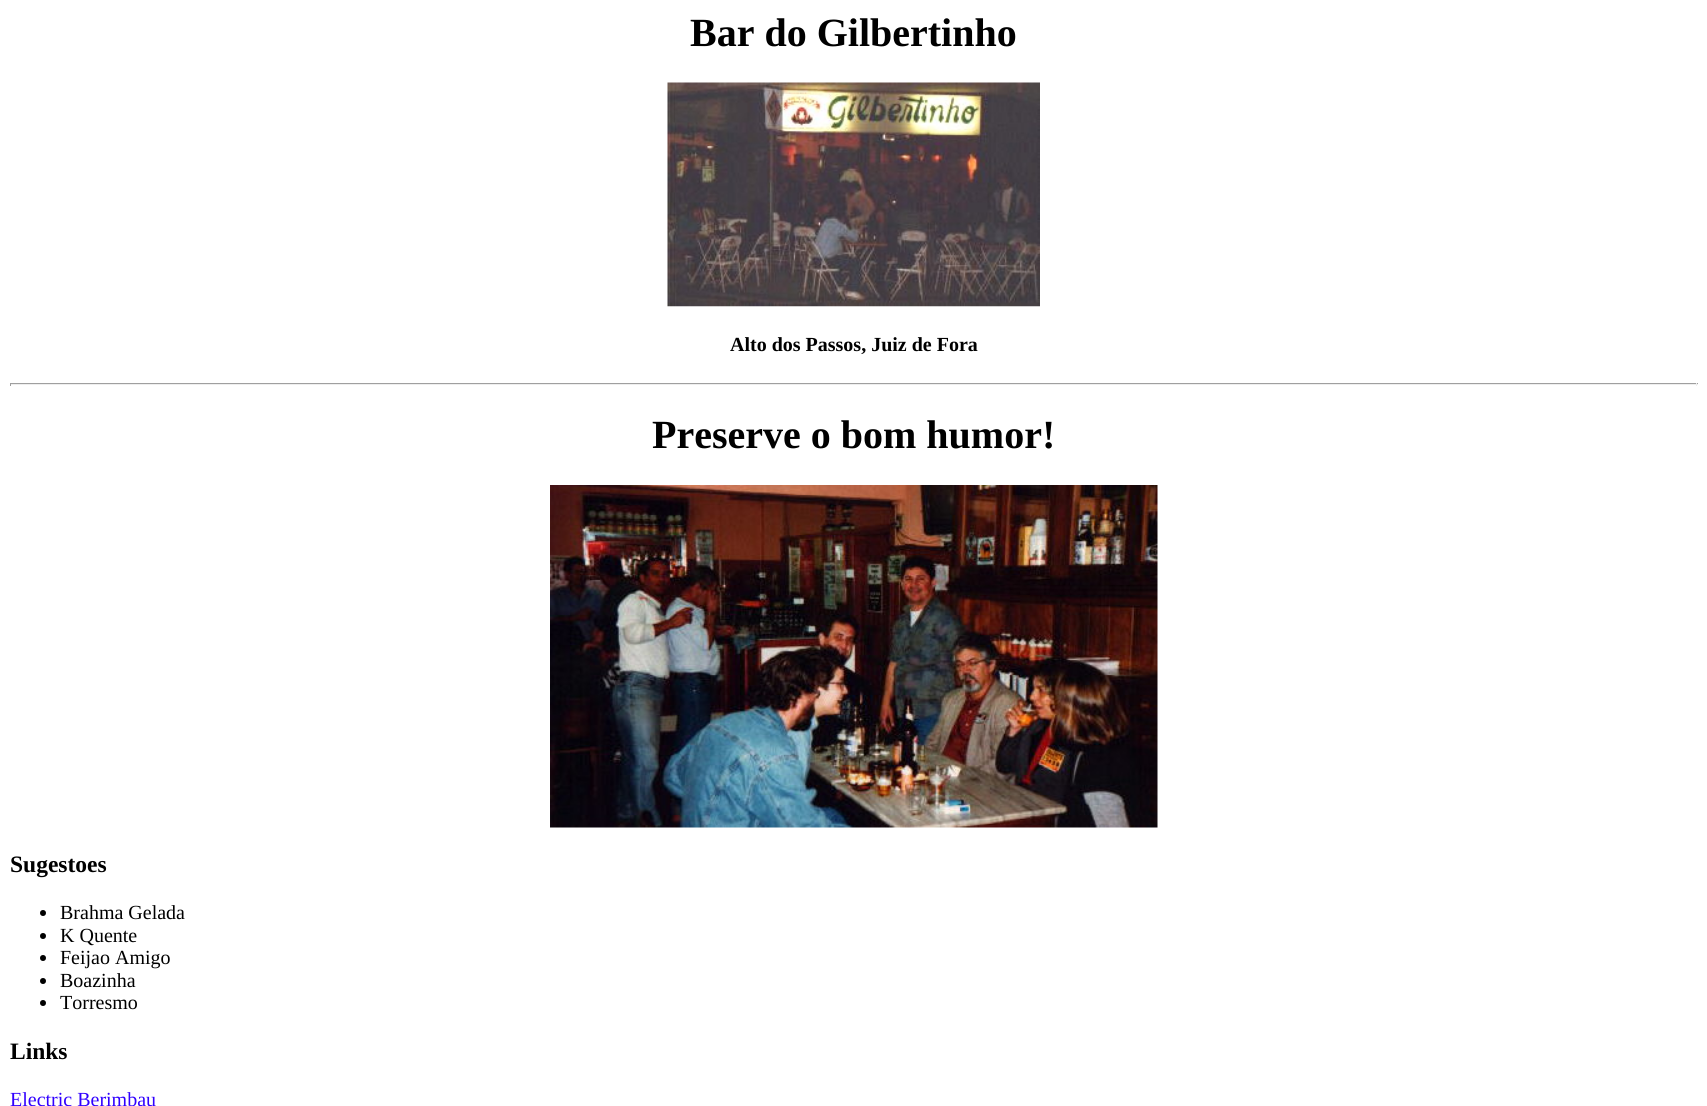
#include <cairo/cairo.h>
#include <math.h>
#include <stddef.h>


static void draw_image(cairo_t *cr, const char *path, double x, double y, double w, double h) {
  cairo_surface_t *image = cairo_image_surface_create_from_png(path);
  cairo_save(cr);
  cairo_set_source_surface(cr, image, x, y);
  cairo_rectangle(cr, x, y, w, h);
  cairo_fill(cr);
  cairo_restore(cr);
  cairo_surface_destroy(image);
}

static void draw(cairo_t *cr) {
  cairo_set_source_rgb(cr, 1, 1, 1);
  cairo_paint(cr);
  draw_image(cr, "images/1.png", 667, 82, 373, 225);
  cairo_set_source_rgb(cr, 159 / 255.0, 159 / 255.0, 159 / 255.0);
  cairo_rectangle(cr, 10, 383, 1688, 1);
  cairo_fill(cr);
  cairo_set_source_rgb(cr, 238 / 255.0, 238 / 255.0, 238 / 255.0);
  cairo_rectangle(cr, 1696, 383, 1, 3);
  cairo_fill(cr);
  cairo_rectangle(cr, 10, 384, 1688, 1);
  cairo_fill(cr);
  cairo_set_source_rgb(cr, 159 / 255.0, 159 / 255.0, 159 / 255.0);
  cairo_rectangle(cr, 10, 383, 1, 3);
  cairo_fill(cr);
  draw_image(cr, "images/2.png", 550, 485, 608, 343);
  cairo_set_source_rgb(cr, 0, 0, 0);
  cairo_arc(cr, 43, 913, 3, 0, 2 * M_PI);
  cairo_fill(cr);
  cairo_arc(cr, 43, 936, 3, 0, 2 * M_PI);
  cairo_fill(cr);
  cairo_arc(cr, 43, 958, 3, 0, 2 * M_PI);
  cairo_fill(cr);
  cairo_arc(cr, 43, 981, 3, 0, 2 * M_PI);
  cairo_fill(cr);
  cairo_arc(cr, 43, 1003, 3, 0, 2 * M_PI);
  cairo_fill(cr);
  cairo_select_font_face(cr, "Liberation Serif", CAIRO_FONT_SLANT_NORMAL, CAIRO_FONT_WEIGHT_BOLD);
  cairo_set_font_size(cr, 40);
  cairo_move_to(cr, 690, 46);
  cairo_show_text(cr, "Bar do Gilbertinho");
  cairo_set_font_size(cr, 20);
  cairo_move_to(cr, 730, 351);
  cairo_show_text(cr, "Alto dos Passos, Juiz de Fora");
  cairo_set_font_size(cr, 40);
  cairo_move_to(cr, 652, 448);
  cairo_show_text(cr, "Preserve o bom humor!");
  cairo_set_font_size(cr, 23.5);
  cairo_move_to(cr, 10, 872);
  cairo_show_text(cr, "Sugestoes");
  cairo_select_font_face(cr, "Liberation Serif", CAIRO_FONT_SLANT_NORMAL, CAIRO_FONT_WEIGHT_NORMAL);
  cairo_set_font_size(cr, 20);
  cairo_move_to(cr, 60, 919);
  cairo_show_text(cr, "Brahma Gelada");
  cairo_move_to(cr, 60, 942);
  cairo_show_text(cr, "K Quente");
  cairo_move_to(cr, 60, 964);
  cairo_show_text(cr, "Feijao Amigo");
  cairo_move_to(cr, 60, 987);
  cairo_show_text(cr, "Boazinha");
  cairo_move_to(cr, 60, 1009);
  cairo_show_text(cr, "Torresmo");
  cairo_select_font_face(cr, "Liberation Serif", CAIRO_FONT_SLANT_NORMAL, CAIRO_FONT_WEIGHT_BOLD);
  cairo_set_font_size(cr, 23.5);
  cairo_move_to(cr, 10, 1059);
  cairo_show_text(cr, "Links");
  cairo_select_font_face(cr, "Liberation Serif", CAIRO_FONT_SLANT_NORMAL, CAIRO_FONT_WEIGHT_NORMAL);
  cairo_set_font_size(cr, 20);
  cairo_set_source_rgb(cr, 48 / 255.0, 0, 1);
  cairo_move_to(cr, 10, 1106);
  cairo_show_text(cr, "Electric Berimbau");
}

int main(void) {
  cairo_surface_t *surface = cairo_image_surface_create(CAIRO_FORMAT_RGB24, 1707, 1106);
  cairo_t *cr = cairo_create(surface);
  cairo_font_options_t *options = cairo_font_options_create();
  cairo_font_options_set_hint_metrics(options, CAIRO_HINT_METRICS_OFF);
  cairo_font_options_set_hint_style(options, CAIRO_HINT_STYLE_NONE);
  cairo_set_font_options(cr, options);
  cairo_set_miter_limit(cr, 4);
  draw(cr);
  cairo_surface_write_to_png(surface, "out.png");
  cairo_font_options_destroy(options);
  cairo_destroy(cr);
  cairo_surface_destroy(surface);
  return 0;
}
